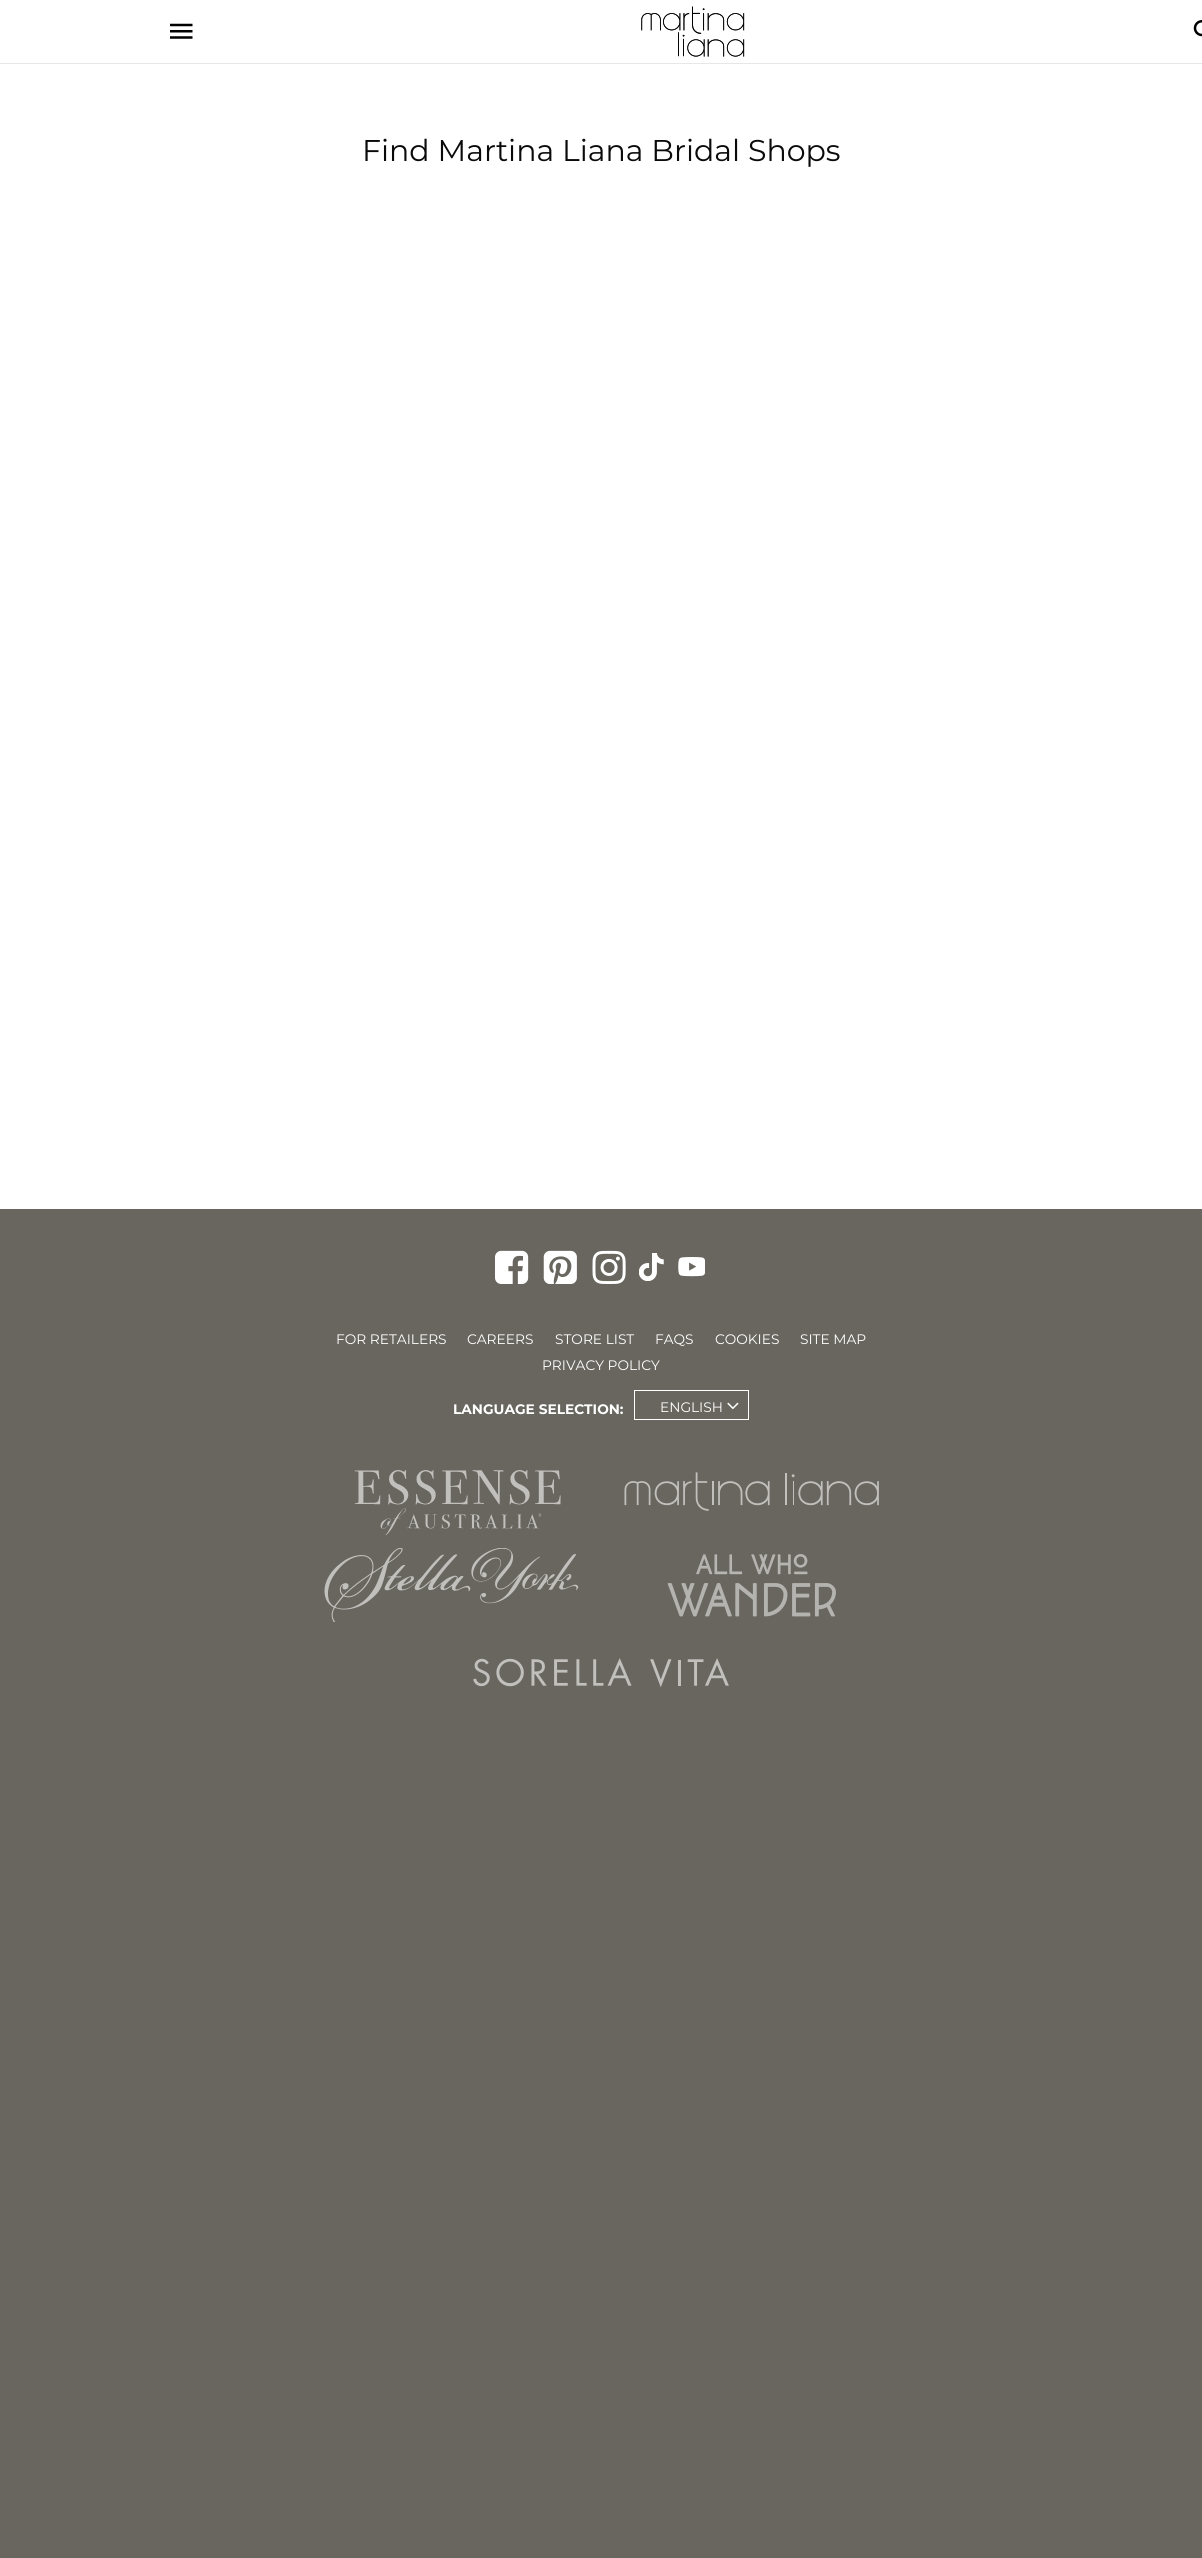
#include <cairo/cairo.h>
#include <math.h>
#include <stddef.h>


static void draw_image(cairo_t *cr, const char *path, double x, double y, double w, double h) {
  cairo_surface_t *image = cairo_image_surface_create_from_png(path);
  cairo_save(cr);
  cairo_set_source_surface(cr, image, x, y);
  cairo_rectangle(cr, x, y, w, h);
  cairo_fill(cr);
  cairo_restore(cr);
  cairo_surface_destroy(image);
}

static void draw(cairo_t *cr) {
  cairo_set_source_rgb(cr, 104 / 255.0, 102 / 255.0, 95 / 255.0);
  cairo_paint(cr);
  cairo_set_source_rgb(cr, 1, 1, 1);
  cairo_rectangle(cr, 0, 0, 1202, 63);
  cairo_fill(cr);
  cairo_set_source_rgb(cr, 231 / 255.0, 231 / 255.0, 231 / 255.0);
  cairo_rectangle(cr, 0, 63, 1202, 1);
  cairo_fill(cr);
  draw_image(cr, "images/1.png", 170, 23, 23, 16);
  draw_image(cr, "images/2.png", 641, 6, 104, 51);
  draw_image(cr, "images/3.png", 1193, 20, 9, 17);
  cairo_set_source_rgb(cr, 1, 1, 1);
  cairo_rectangle(cr, 0, 64, 1202, 1145);
  cairo_fill(cr);
  draw_image(cr, "images/4.png", 495, 1250, 34, 34);
  draw_image(cr, "images/5.png", 543, 1250, 34, 34);
  draw_image(cr, "images/6.png", 592, 1250, 34, 34);
  draw_image(cr, "images/7.png", 639, 1253, 25, 28);
  draw_image(cr, "images/8.png", 678, 1257, 27, 20);
  cairo_rectangle(cr, 634.5, 1390.5, 114, 29);
  cairo_set_line_width(cr, 1);
  cairo_stroke(cr);
  draw_image(cr, "images/9.png", 727, 1402, 12, 8);
  draw_image(cr, "images/10.png", 354, 1470, 207, 65);
  draw_image(cr, "images/11.png", 624, 1472, 255, 39);
  draw_image(cr, "images/12.png", 324, 1548, 255, 74);
  draw_image(cr, "images/13.png", 667, 1554, 169, 63);
  draw_image(cr, "images/14.png", 473, 1658, 256, 29);
  cairo_select_font_face(cr, "Montserrat", CAIRO_FONT_SLANT_NORMAL, CAIRO_FONT_WEIGHT_NORMAL);
  cairo_set_font_size(cr, 30);
  cairo_set_source_rgb(cr, 10 / 255.0, 10 / 255.0, 10 / 255.0);
  cairo_move_to(cr, 362, 161);
  cairo_show_text(cr, "Find Martina Liana Bridal Shops");
  cairo_set_font_size(cr, 13.75);
  cairo_set_source_rgb(cr, 1, 1, 1);
  cairo_move_to(cr, 336, 1344);
  cairo_show_text(cr, "FOR RETAILERS");
  cairo_move_to(cr, 467, 1344);
  cairo_show_text(cr, "CAREERS");
  cairo_move_to(cr, 555, 1344);
  cairo_show_text(cr, "STORE LIST");
  cairo_move_to(cr, 655, 1344);
  cairo_show_text(cr, "FAQS");
  cairo_move_to(cr, 715, 1344);
  cairo_show_text(cr, "COOKIES");
  cairo_move_to(cr, 800, 1344);
  cairo_show_text(cr, "SITE MAP");
  cairo_move_to(cr, 542, 1370);
  cairo_show_text(cr, "PRIVACY POLICY");
  cairo_select_font_face(cr, "Montserrat", CAIRO_FONT_SLANT_NORMAL, CAIRO_FONT_WEIGHT_BOLD);
  cairo_move_to(cr, 453, 1414);
  cairo_show_text(cr, "LANGUAGE SELECTION:");
  cairo_select_font_face(cr, "Montserrat", CAIRO_FONT_SLANT_NORMAL, CAIRO_FONT_WEIGHT_NORMAL);
  cairo_move_to(cr, 660, 1412);
  cairo_show_text(cr, "ENGLISH");
}

int main(void) {
  cairo_surface_t *surface = cairo_image_surface_create(CAIRO_FORMAT_RGB24, 1202, 2558);
  cairo_t *cr = cairo_create(surface);
  cairo_font_options_t *options = cairo_font_options_create();
  cairo_font_options_set_hint_metrics(options, CAIRO_HINT_METRICS_OFF);
  cairo_font_options_set_hint_style(options, CAIRO_HINT_STYLE_NONE);
  cairo_set_font_options(cr, options);
  cairo_set_miter_limit(cr, 4);
  draw(cr);
  cairo_surface_write_to_png(surface, "out.png");
  cairo_font_options_destroy(options);
  cairo_destroy(cr);
  cairo_surface_destroy(surface);
  return 0;
}
